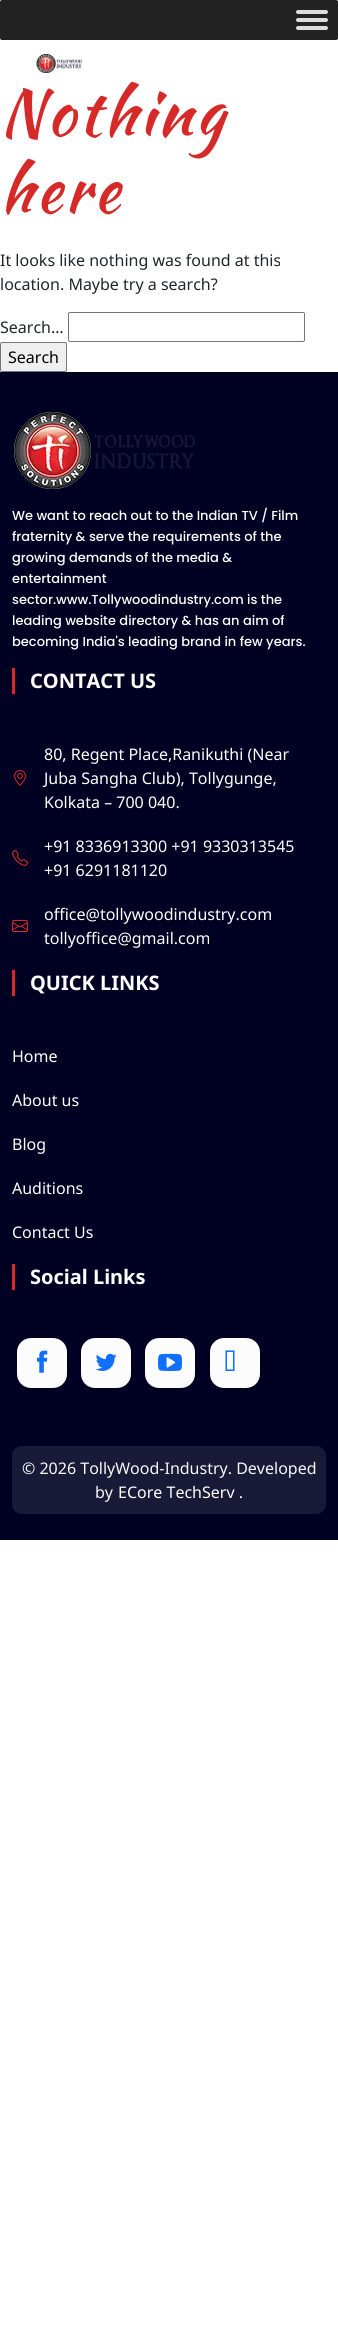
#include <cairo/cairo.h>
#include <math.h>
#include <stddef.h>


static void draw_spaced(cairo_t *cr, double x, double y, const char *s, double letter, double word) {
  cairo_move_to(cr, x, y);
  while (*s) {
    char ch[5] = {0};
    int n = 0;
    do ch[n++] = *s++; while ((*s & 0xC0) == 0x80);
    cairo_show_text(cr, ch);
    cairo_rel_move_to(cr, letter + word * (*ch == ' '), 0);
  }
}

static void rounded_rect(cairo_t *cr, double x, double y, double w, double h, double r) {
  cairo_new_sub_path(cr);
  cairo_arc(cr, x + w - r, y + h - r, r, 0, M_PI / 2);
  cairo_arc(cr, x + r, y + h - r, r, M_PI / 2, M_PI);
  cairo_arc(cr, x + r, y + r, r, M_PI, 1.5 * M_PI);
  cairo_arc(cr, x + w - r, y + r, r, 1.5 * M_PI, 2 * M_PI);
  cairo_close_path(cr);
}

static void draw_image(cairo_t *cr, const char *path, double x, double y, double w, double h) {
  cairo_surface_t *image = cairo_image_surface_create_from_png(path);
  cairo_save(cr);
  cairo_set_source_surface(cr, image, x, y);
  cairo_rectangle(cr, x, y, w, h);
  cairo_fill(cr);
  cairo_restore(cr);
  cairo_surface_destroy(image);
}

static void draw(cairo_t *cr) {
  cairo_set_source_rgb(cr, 1, 1, 1);
  cairo_paint(cr);
  cairo_set_source_rgb(cr, 34 / 255.0, 34 / 255.0, 34 / 255.0);
  rounded_rect(cr, 0, 0, 338, 40, 2);
  cairo_fill(cr);
  cairo_set_source_rgb(cr, 221 / 255.0, 221 / 255.0, 221 / 255.0);
  rounded_rect(cr, 296, 10, 32, 4, 2);
  cairo_fill(cr);
  rounded_rect(cr, 296, 18, 32, 4, 2);
  cairo_fill(cr);
  rounded_rect(cr, 296, 26, 32, 4, 2);
  cairo_fill(cr);
  draw_image(cr, "images/1.png", 36, 54, 46, 19);
  rounded_rect(cr, 68.5, 312.5, 236, 29, 1.5);
  cairo_set_source_rgb(cr, 118 / 255.0, 118 / 255.0, 118 / 255.0);
  cairo_set_line_width(cr, 1);
  cairo_stroke(cr);
  cairo_set_source_rgb(cr, 239 / 255.0, 239 / 255.0, 239 / 255.0);
  rounded_rect(cr, 0.5, 342.5, 66, 29, 1.5);
  cairo_fill_preserve(cr);
  cairo_set_source_rgb(cr, 118 / 255.0, 118 / 255.0, 118 / 255.0);
  cairo_stroke(cr);
  cairo_set_source_rgb(cr, 0, 0, 34 / 255.0);
  cairo_rectangle(cr, 0, 372, 338, 1168);
  cairo_fill(cr);
  draw_image(cr, "images/2.png", 14, 412, 181, 77);
  cairo_set_source_rgb(cr, 214 / 255.0, 42 / 255.0, 41 / 255.0);
  cairo_rectangle(cr, 12, 668, 3, 26);
  cairo_fill(cr);
  draw_image(cr, "images/3.png", 14, 770, 12, 16);
  draw_image(cr, "images/4.png", 12, 850, 16, 16);
  draw_image(cr, "images/5.png", 12, 920, 16, 12);
  cairo_rectangle(cr, 12, 970, 3, 26);
  cairo_fill(cr);
  cairo_rectangle(cr, 12, 1264, 3, 26);
  cairo_fill(cr);
  cairo_set_source_rgb(cr, 252 / 255.0, 252 / 255.0, 253 / 255.0);
  rounded_rect(cr, 17, 1338, 50, 50, 14);
  cairo_fill(cr);
  draw_image(cr, "images/6.png", 37, 1350, 11, 23);
  rounded_rect(cr, 81, 1338, 50, 50, 14);
  cairo_fill(cr);
  draw_image(cr, "images/7.png", 95, 1353, 22, 18);
  rounded_rect(cr, 145, 1338, 50, 50, 14);
  cairo_fill(cr);
  draw_image(cr, "images/8.png", 158, 1353, 24, 18);
  rounded_rect(cr, 210, 1338, 50, 50, 14);
  cairo_fill(cr);
  draw_image(cr, "images/9.png", 225, 1350, 10, 21);
  cairo_set_source_rgb(cr, 25 / 255.0, 25 / 255.0, 56 / 255.0);
  rounded_rect(cr, 12, 1446, 314, 68, 10);
  cairo_fill(cr);
  cairo_select_font_face(cr, "Kaushan Script", CAIRO_FONT_SLANT_NORMAL, CAIRO_FONT_WEIGHT_NORMAL);
  cairo_set_font_size(cr, 64);
  cairo_set_source_rgb(cr, 214 / 255.0, 42 / 255.0, 41 / 255.0);
  draw_spaced(cr, 0, 135, "Nothing", 3, 0);
  draw_spaced(cr, 0, 212, "here", 3, 0);
  cairo_select_font_face(cr, "Noto Sans", CAIRO_FONT_SLANT_NORMAL, CAIRO_FONT_WEIGHT_NORMAL);
  cairo_set_font_size(cr, 16);
  cairo_set_source_rgb(cr, 33 / 255.0, 37 / 255.0, 41 / 255.0);
  cairo_move_to(cr, 0, 266);
  cairo_show_text(cr, "It looks like nothing was found at this");
  cairo_move_to(cr, 0, 290);
  cairo_show_text(cr, "location. Maybe try a search?");
  cairo_move_to(cr, 0, 333);
  cairo_show_text(cr, "Search…");
  cairo_set_source_rgb(cr, 0, 0, 0);
  cairo_move_to(cr, 8, 363);
  cairo_show_text(cr, "Search");
  cairo_select_font_face(cr, "Poppins Medium", CAIRO_FONT_SLANT_NORMAL, CAIRO_FONT_WEIGHT_NORMAL);
  cairo_set_font_size(cr, 13);
  cairo_set_source_rgb(cr, 1, 1, 1);
  cairo_move_to(cr, 12, 520);
  cairo_show_text(cr, "We want to reach out to the Indian TV / Film");
  cairo_move_to(cr, 12, 541);
  cairo_show_text(cr, "fraternity & serve the requirements of the");
  cairo_move_to(cr, 12, 562);
  cairo_show_text(cr, "growing demands of the media &");
  cairo_move_to(cr, 12, 583);
  cairo_show_text(cr, "entertainment");
  cairo_move_to(cr, 12, 604);
  cairo_show_text(cr, "sector.www.Tollywoodindustry.com is the");
  cairo_move_to(cr, 12, 625);
  cairo_show_text(cr, "leading website directory & has an aim of");
  cairo_move_to(cr, 12, 646);
  cairo_show_text(cr, "becoming India's leading brand in few years.");
  cairo_select_font_face(cr, "Noto Sans", CAIRO_FONT_SLANT_NORMAL, CAIRO_FONT_WEIGHT_BOLD);
  cairo_set_font_size(cr, 20);
  cairo_move_to(cr, 30, 688);
  cairo_show_text(cr, "CONTACT US");
  cairo_select_font_face(cr, "Noto Sans", CAIRO_FONT_SLANT_NORMAL, CAIRO_FONT_WEIGHT_NORMAL);
  cairo_set_font_size(cr, 16);
  cairo_move_to(cr, 44, 760);
  cairo_show_text(cr, "80, Regent Place,Ranikuthi (Near");
  cairo_move_to(cr, 44, 784);
  cairo_show_text(cr, "Juba Sangha Club), Tollygunge,");
  cairo_move_to(cr, 44, 808);
  cairo_show_text(cr, "Kolkata – 700 040.");
  cairo_move_to(cr, 44, 852);
  cairo_show_text(cr, "+91 8336913300 +91 9330313545");
  cairo_move_to(cr, 44, 876);
  cairo_show_text(cr, "+91 6291181120");
  cairo_move_to(cr, 44, 920);
  cairo_show_text(cr, "office@tollywoodindustry.com");
  cairo_move_to(cr, 44, 944);
  cairo_show_text(cr, "tollyoffice@gmail.com");
  cairo_select_font_face(cr, "Noto Sans", CAIRO_FONT_SLANT_NORMAL, CAIRO_FONT_WEIGHT_BOLD);
  cairo_set_font_size(cr, 20);
  cairo_move_to(cr, 30, 990);
  cairo_show_text(cr, "QUICK LINKS");
  cairo_select_font_face(cr, "Noto Sans", CAIRO_FONT_SLANT_NORMAL, CAIRO_FONT_WEIGHT_NORMAL);
  cairo_set_font_size(cr, 16);
  cairo_move_to(cr, 12, 1062);
  cairo_show_text(cr, "Home");
  cairo_move_to(cr, 12, 1106);
  cairo_show_text(cr, "About us");
  cairo_move_to(cr, 12, 1150);
  cairo_show_text(cr, "Blog");
  cairo_move_to(cr, 12, 1194);
  cairo_show_text(cr, "Auditions");
  cairo_move_to(cr, 12, 1238);
  cairo_show_text(cr, "Contact Us");
  cairo_select_font_face(cr, "Noto Sans", CAIRO_FONT_SLANT_NORMAL, CAIRO_FONT_WEIGHT_BOLD);
  cairo_set_font_size(cr, 20);
  cairo_move_to(cr, 30, 1284);
  cairo_show_text(cr, "Social Links");
  cairo_select_font_face(cr, "Noto Sans", CAIRO_FONT_SLANT_NORMAL, CAIRO_FONT_WEIGHT_NORMAL);
  cairo_set_font_size(cr, 16);
  cairo_set_source_rgb(cr, 248 / 255.0, 249 / 255.0, 250 / 255.0);
  cairo_move_to(cr, 22, 1474);
  cairo_show_text(cr, "© 2026 TollyWood-Industry. Developed");
  cairo_move_to(cr, 95, 1498);
  cairo_show_text(cr, "by");
  cairo_set_source_rgb(cr, 1, 1, 1);
  cairo_move_to(cr, 118, 1498);
  cairo_show_text(cr, "ECore TechServ .");
}

int main(void) {
  cairo_surface_t *surface = cairo_image_surface_create(CAIRO_FORMAT_RGB24, 338, 2335);
  cairo_t *cr = cairo_create(surface);
  cairo_font_options_t *options = cairo_font_options_create();
  cairo_font_options_set_hint_metrics(options, CAIRO_HINT_METRICS_OFF);
  cairo_font_options_set_hint_style(options, CAIRO_HINT_STYLE_NONE);
  cairo_set_font_options(cr, options);
  cairo_set_miter_limit(cr, 4);
  draw(cr);
  cairo_surface_write_to_png(surface, "out.png");
  cairo_font_options_destroy(options);
  cairo_destroy(cr);
  cairo_surface_destroy(surface);
  return 0;
}
